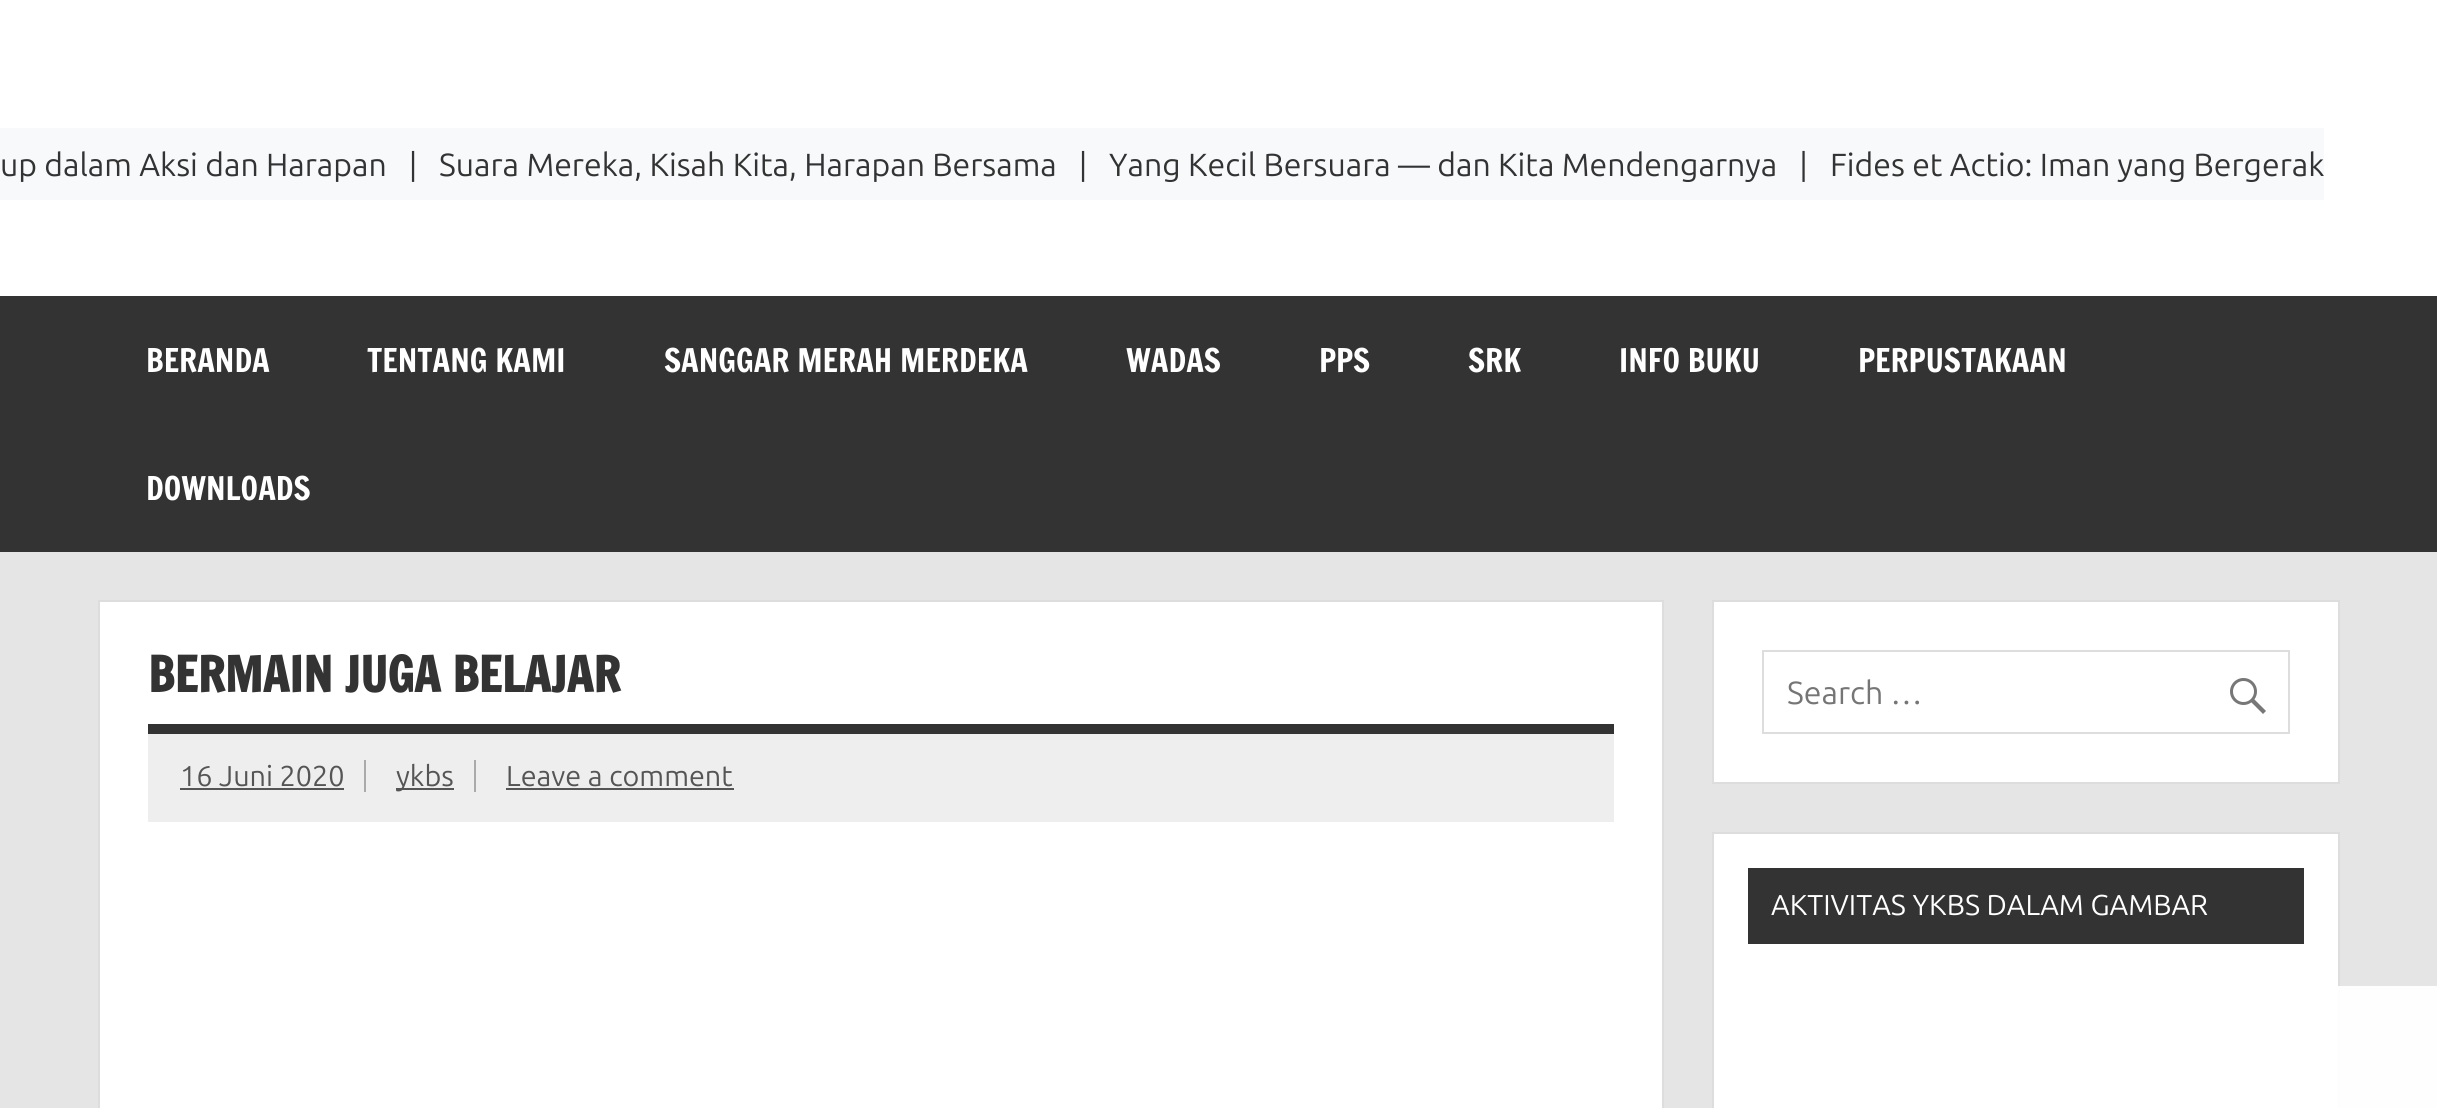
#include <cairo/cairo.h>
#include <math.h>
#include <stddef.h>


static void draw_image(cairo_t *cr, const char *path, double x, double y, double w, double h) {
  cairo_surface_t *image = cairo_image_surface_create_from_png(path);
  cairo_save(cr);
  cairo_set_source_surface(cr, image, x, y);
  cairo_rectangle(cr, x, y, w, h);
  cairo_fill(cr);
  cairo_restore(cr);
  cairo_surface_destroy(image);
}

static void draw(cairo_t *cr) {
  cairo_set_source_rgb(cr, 229 / 255.0, 229 / 255.0, 229 / 255.0);
  cairo_paint(cr);
  cairo_set_source_rgb(cr, 1, 1, 1);
  cairo_rectangle(cr, 0, 0, 2437, 296);
  cairo_fill(cr);
  cairo_set_source_rgb(cr, 248 / 255.0, 249 / 255.0, 250 / 255.0);
  cairo_rectangle(cr, 0, 128, 2324, 72);
  cairo_fill(cr);
  cairo_set_source_rgb(cr, 51 / 255.0, 51 / 255.0, 51 / 255.0);
  cairo_rectangle(cr, 0, 296, 2437, 256);
  cairo_fill(cr);
  cairo_set_source_rgb(cr, 1, 1, 1);
  cairo_rectangle(cr, 99, 601, 1564, 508);
  cairo_fill_preserve(cr);
  cairo_set_source_rgb(cr, 221 / 255.0, 221 / 255.0, 221 / 255.0);
  cairo_stroke(cr);
  cairo_set_source_rgb(cr, 51 / 255.0, 51 / 255.0, 51 / 255.0);
  cairo_rectangle(cr, 148, 724, 1466, 10);
  cairo_fill(cr);
  cairo_set_source_rgb(cr, 238 / 255.0, 238 / 255.0, 238 / 255.0);
  cairo_rectangle(cr, 148, 734, 1466, 88);
  cairo_fill(cr);
  cairo_set_source_rgb(cr, 170 / 255.0, 170 / 255.0, 170 / 255.0);
  cairo_rectangle(cr, 364, 760, 2, 32);
  cairo_fill(cr);
  cairo_set_source_rgb(cr, 85 / 255.0, 85 / 255.0, 85 / 255.0);
  cairo_rectangle(cr, 180, 788, 164, 2);
  cairo_fill(cr);
  cairo_set_source_rgb(cr, 170 / 255.0, 170 / 255.0, 170 / 255.0);
  cairo_rectangle(cr, 474, 760, 2, 32);
  cairo_fill(cr);
  cairo_set_source_rgb(cr, 85 / 255.0, 85 / 255.0, 85 / 255.0);
  cairo_rectangle(cr, 396, 788, 58, 2);
  cairo_fill(cr);
  cairo_rectangle(cr, 506, 788, 228, 2);
  cairo_fill(cr);
  cairo_set_source_rgb(cr, 1, 1, 1);
  cairo_rectangle(cr, 1713, 601, 626, 182);
  cairo_fill_preserve(cr);
  cairo_set_source_rgb(cr, 221 / 255.0, 221 / 255.0, 221 / 255.0);
  cairo_stroke(cr);
  cairo_rectangle(cr, 1763, 651, 526, 82);
  cairo_stroke(cr);
  draw_image(cr, "images/1.png", 2230, 678, 36, 36);
  cairo_set_source_rgb(cr, 1, 1, 1);
  cairo_rectangle(cr, 1713, 833, 626, 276);
  cairo_fill_preserve(cr);
  cairo_set_source_rgb(cr, 221 / 255.0, 221 / 255.0, 221 / 255.0);
  cairo_stroke(cr);
  cairo_set_source_rgb(cr, 51 / 255.0, 51 / 255.0, 51 / 255.0);
  cairo_rectangle(cr, 1748, 868, 556, 76);
  cairo_fill(cr);
  cairo_set_source_rgba(cr, 1, 1, 1, 0.95);
  cairo_rectangle(cr, 2338, 986, 99, 122);
  cairo_fill(cr);
  cairo_select_font_face(cr, "Ubuntu", CAIRO_FONT_SLANT_NORMAL, CAIRO_FONT_WEIGHT_NORMAL);
  cairo_set_font_size(cr, 32);
  cairo_set_source_rgb(cr, 51 / 255.0, 51 / 255.0, 51 / 255.0);
  cairo_move_to(cr, 0, 176);
  cairo_show_text(cr, "up dalam Aksi dan Harapan   |");
  cairo_move_to(cr, 439, 176);
  cairo_show_text(cr, "Suara Mereka, Kisah Kita, Harapan Bersama   |");
  cairo_move_to(cr, 1109, 176);
  cairo_show_text(cr, "Yang Kecil Bersuara — dan Kita Mendengarnya   |");
  cairo_move_to(cr, 1830, 176);
  cairo_show_text(cr, "Fides et Actio: Iman yang Bergerak");
  cairo_select_font_face(cr, "Francois One", CAIRO_FONT_SLANT_NORMAL, CAIRO_FONT_WEIGHT_NORMAL);
  cairo_set_source_rgb(cr, 1, 1, 1);
  cairo_move_to(cr, 146, 372);
  cairo_show_text(cr, "BERANDA");
  cairo_move_to(cr, 367, 372);
  cairo_show_text(cr, "TENTANG KAMI");
  cairo_move_to(cr, 664, 372);
  cairo_show_text(cr, "SANGGAR MERAH MERDEKA");
  cairo_move_to(cr, 1126, 372);
  cairo_show_text(cr, "WADAS");
  cairo_move_to(cr, 1319, 372);
  cairo_show_text(cr, "PPS");
  cairo_move_to(cr, 1468, 372);
  cairo_show_text(cr, "SRK");
  cairo_move_to(cr, 1619, 372);
  cairo_show_text(cr, "INFO BUKU");
  cairo_move_to(cr, 1858, 372);
  cairo_show_text(cr, "PERPUSTAKAAN");
  cairo_move_to(cr, 146, 500);
  cairo_show_text(cr, "DOWNLOADS");
  cairo_select_font_face(cr, "Francois One", CAIRO_FONT_SLANT_NORMAL, CAIRO_FONT_WEIGHT_BOLD);
  cairo_set_font_size(cr, 48);
  cairo_set_source_rgb(cr, 51 / 255.0, 51 / 255.0, 51 / 255.0);
  cairo_move_to(cr, 148, 692);
  cairo_show_text(cr, "BERMAIN JUGA BELAJAR");
  cairo_select_font_face(cr, "Ubuntu", CAIRO_FONT_SLANT_NORMAL, CAIRO_FONT_WEIGHT_NORMAL);
  cairo_set_font_size(cr, 28.75);
  cairo_set_source_rgb(cr, 85 / 255.0, 85 / 255.0, 85 / 255.0);
  cairo_move_to(cr, 180, 786);
  cairo_show_text(cr, "16 Juni 2020");
  cairo_move_to(cr, 396, 786);
  cairo_show_text(cr, "ykbs");
  cairo_move_to(cr, 506, 786);
  cairo_show_text(cr, "Leave a comment");
  cairo_set_font_size(cr, 32);
  cairo_set_source_rgb(cr, 117 / 255.0, 117 / 255.0, 117 / 255.0);
  cairo_move_to(cr, 1787, 704);
  cairo_show_text(cr, "Search …");
  cairo_set_font_size(cr, 28.75);
  cairo_set_source_rgb(cr, 1, 1, 1);
  cairo_move_to(cr, 1771, 915);
  cairo_show_text(cr, "AKTIVITAS YKBS DALAM GAMBAR");
}

int main(void) {
  cairo_surface_t *surface = cairo_image_surface_create(CAIRO_FORMAT_RGB24, 2437, 1108);
  cairo_t *cr = cairo_create(surface);
  cairo_font_options_t *options = cairo_font_options_create();
  cairo_font_options_set_hint_metrics(options, CAIRO_HINT_METRICS_OFF);
  cairo_font_options_set_hint_style(options, CAIRO_HINT_STYLE_NONE);
  cairo_set_font_options(cr, options);
  cairo_set_miter_limit(cr, 4);
  draw(cr);
  cairo_surface_write_to_png(surface, "out.png");
  cairo_font_options_destroy(options);
  cairo_destroy(cr);
  cairo_surface_destroy(surface);
  return 0;
}
